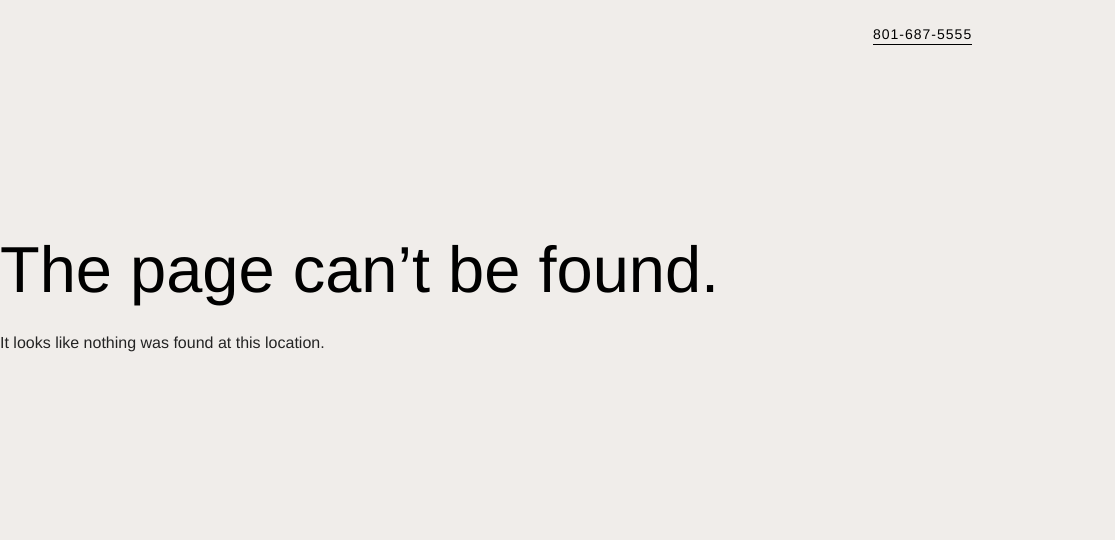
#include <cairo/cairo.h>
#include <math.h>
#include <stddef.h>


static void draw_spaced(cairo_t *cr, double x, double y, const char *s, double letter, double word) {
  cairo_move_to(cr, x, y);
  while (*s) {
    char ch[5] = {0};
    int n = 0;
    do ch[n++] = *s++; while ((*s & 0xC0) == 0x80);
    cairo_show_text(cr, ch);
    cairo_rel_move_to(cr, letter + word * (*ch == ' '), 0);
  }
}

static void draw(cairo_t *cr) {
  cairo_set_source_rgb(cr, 240 / 255.0, 237 / 255.0, 234 / 255.0);
  cairo_paint(cr);
  cairo_set_source_rgb(cr, 0, 0, 0);
  cairo_rectangle(cr, 873, 44, 99, 1);
  cairo_fill(cr);
  cairo_select_font_face(cr, "Liberation Sans", CAIRO_FONT_SLANT_NORMAL, CAIRO_FONT_WEIGHT_NORMAL);
  cairo_set_font_size(cr, 14);
  draw_spaced(cr, 873, 39, "801-687-5555", 1, 0);
  cairo_set_font_size(cr, 65);
  cairo_move_to(cr, 0, 292);
  cairo_show_text(cr, "The page can’t be found.");
  cairo_set_font_size(cr, 16);
  cairo_set_source_rgb(cr, 35 / 255.0, 35 / 255.0, 35 / 255.0);
  cairo_move_to(cr, 0, 348);
  cairo_show_text(cr, "It looks like nothing was found at this location.");
}

int main(void) {
  cairo_surface_t *surface = cairo_image_surface_create(CAIRO_FORMAT_RGB24, 1115, 540);
  cairo_t *cr = cairo_create(surface);
  cairo_font_options_t *options = cairo_font_options_create();
  cairo_font_options_set_hint_metrics(options, CAIRO_HINT_METRICS_OFF);
  cairo_font_options_set_hint_style(options, CAIRO_HINT_STYLE_NONE);
  cairo_set_font_options(cr, options);
  cairo_set_miter_limit(cr, 4);
  draw(cr);
  cairo_surface_write_to_png(surface, "out.png");
  cairo_font_options_destroy(options);
  cairo_destroy(cr);
  cairo_surface_destroy(surface);
  return 0;
}
